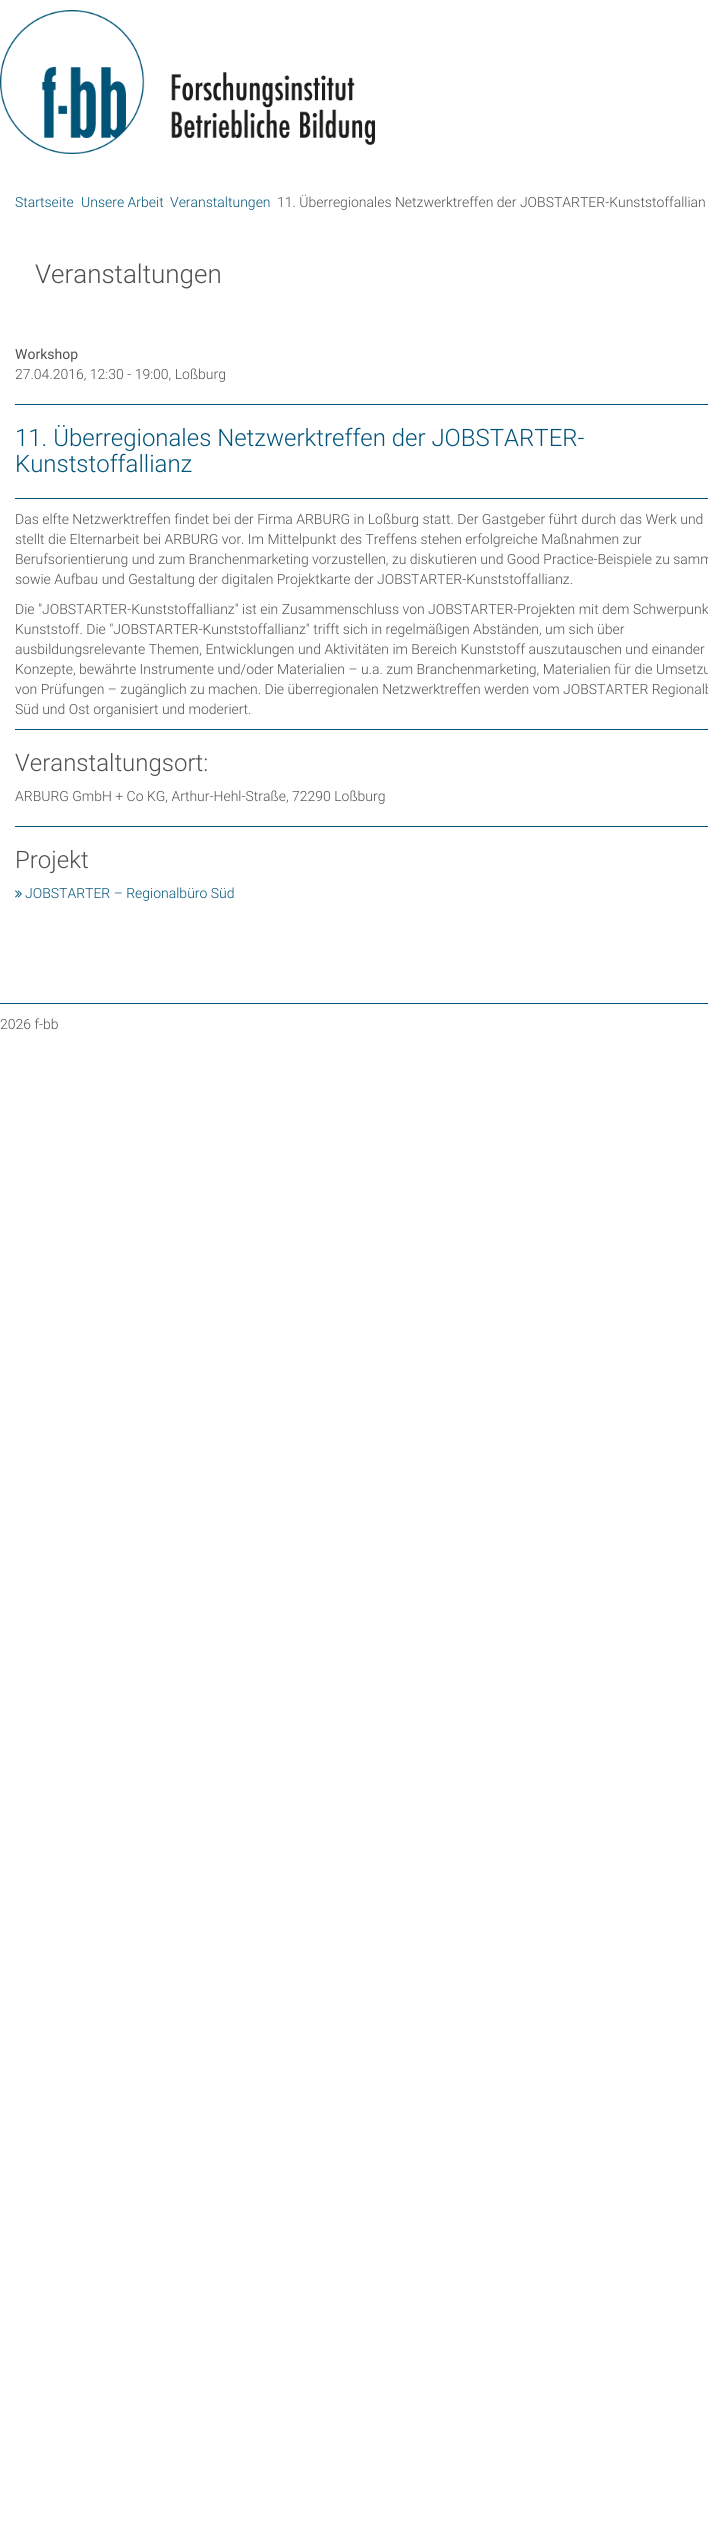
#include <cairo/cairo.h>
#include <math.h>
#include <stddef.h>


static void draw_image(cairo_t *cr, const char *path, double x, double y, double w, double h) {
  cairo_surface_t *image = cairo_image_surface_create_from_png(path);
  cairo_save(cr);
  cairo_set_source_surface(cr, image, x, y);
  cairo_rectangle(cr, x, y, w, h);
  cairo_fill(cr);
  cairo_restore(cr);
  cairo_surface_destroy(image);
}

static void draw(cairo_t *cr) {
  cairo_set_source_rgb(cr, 1, 1, 1);
  cairo_paint(cr);
  draw_image(cr, "images/1.png", 0, 10, 375, 144);
  cairo_set_source_rgb(cr, 0, 84 / 255.0, 122 / 255.0);
  cairo_rectangle(cr, 15, 404, 693, 1);
  cairo_fill(cr);
  cairo_rectangle(cr, 15, 498, 693, 1);
  cairo_fill(cr);
  cairo_rectangle(cr, 15, 729, 693, 1);
  cairo_fill(cr);
  cairo_rectangle(cr, 15, 826, 693, 1);
  cairo_fill(cr);
  draw_image(cr, "images/2.png", 15, 890, 7, 8);
  cairo_rectangle(cr, 0, 1003, 708, 1);
  cairo_fill(cr);
  cairo_select_font_face(cr, "Roboto Light", CAIRO_FONT_SLANT_NORMAL, CAIRO_FONT_WEIGHT_NORMAL);
  cairo_set_font_size(cr, 14);
  cairo_move_to(cr, 15, 207);
  cairo_show_text(cr, "Startseite");
  cairo_move_to(cr, 81, 207);
  cairo_show_text(cr, "Unsere Arbeit");
  cairo_move_to(cr, 170, 207);
  cairo_show_text(cr, "Veranstaltungen");
  cairo_set_source_rgb(cr, 79 / 255.0, 79 / 255.0, 79 / 255.0);
  cairo_move_to(cr, 277, 207);
  cairo_show_text(cr, "11. Überregionales Netzwerktreffen der JOBSTARTER-Kunststoffallian");
  cairo_set_font_size(cr, 26);
  cairo_move_to(cr, 35, 283);
  cairo_show_text(cr, "Veranstaltungen");
  cairo_select_font_face(cr, "Roboto", CAIRO_FONT_SLANT_NORMAL, CAIRO_FONT_WEIGHT_NORMAL);
  cairo_set_font_size(cr, 14);
  cairo_move_to(cr, 15, 359);
  cairo_show_text(cr, "Workshop");
  cairo_select_font_face(cr, "Roboto Light", CAIRO_FONT_SLANT_NORMAL, CAIRO_FONT_WEIGHT_NORMAL);
  cairo_move_to(cr, 15, 379);
  cairo_show_text(cr, "27.04.2016, 12:30 - 19:00, Loßburg");
  cairo_set_font_size(cr, 24);
  cairo_set_source_rgb(cr, 0, 84 / 255.0, 122 / 255.0);
  cairo_move_to(cr, 15, 446);
  cairo_show_text(cr, "11. Überregionales Netzwerktreffen der JOBSTARTER-");
  cairo_move_to(cr, 15, 472);
  cairo_show_text(cr, "Kunststoffallianz");
  cairo_set_font_size(cr, 14);
  cairo_set_source_rgb(cr, 79 / 255.0, 79 / 255.0, 79 / 255.0);
  cairo_move_to(cr, 15, 524);
  cairo_show_text(cr, "Das elfte Netzwerktreffen findet bei der Firma ARBURG in Loßburg statt. Der Gastgeber führt durch das Werk und");
  cairo_move_to(cr, 15, 544);
  cairo_show_text(cr, "stellt die Elternarbeit bei ARBURG vor. Im Mittelpunkt des Treffens stehen erfolgreiche Maßnahmen zur");
  cairo_move_to(cr, 15, 564);
  cairo_show_text(cr, "Berufsorientierung und zum Branchenmarketing vorzustellen, zu diskutieren und Good Practice-Beispiele zu samm");
  cairo_move_to(cr, 15, 584);
  cairo_show_text(cr, "sowie Aufbau und Gestaltung der digitalen Projektkarte der JOBSTARTER-Kunststoffallianz.");
  cairo_move_to(cr, 15, 614);
  cairo_show_text(cr, "Die \"JOBSTARTER-Kunststoffallianz\" ist ein Zusammenschluss von JOBSTARTER-Projekten mit dem Schwerpunk");
  cairo_move_to(cr, 15, 634);
  cairo_show_text(cr, "Kunststoff. Die \"JOBSTARTER-Kunststoffallianz\" trifft sich in regelmäßigen Abständen, um sich über");
  cairo_move_to(cr, 15, 654);
  cairo_show_text(cr, "ausbildungsrelevante Themen, Entwicklungen und Aktivitäten im Bereich Kunststoff auszutauschen und einander");
  cairo_move_to(cr, 15, 674);
  cairo_show_text(cr, "Konzepte, bewährte Instrumente und/oder Materialien – u.a. zum Branchenmarketing, Materialien für die Umsetzu");
  cairo_move_to(cr, 15, 694);
  cairo_show_text(cr, "von Prüfungen – zugänglich zu machen. Die überregionalen Netzwerktreffen werden vom JOBSTARTER Regionalb");
  cairo_move_to(cr, 15, 714);
  cairo_show_text(cr, "Süd und Ost organisiert und moderiert.");
  cairo_set_font_size(cr, 24);
  cairo_move_to(cr, 15, 771);
  cairo_show_text(cr, "Veranstaltungsort:");
  cairo_set_font_size(cr, 14);
  cairo_move_to(cr, 15, 801);
  cairo_show_text(cr, "ARBURG GmbH + Co KG, Arthur-Hehl-Straße, 72290 Loßburg");
  cairo_set_font_size(cr, 24);
  cairo_move_to(cr, 15, 868);
  cairo_show_text(cr, "Projekt");
  cairo_set_font_size(cr, 14);
  cairo_set_source_rgb(cr, 0, 84 / 255.0, 122 / 255.0);
  cairo_move_to(cr, 25, 898);
  cairo_show_text(cr, "JOBSTARTER – Regionalbüro Süd");
  cairo_set_source_rgb(cr, 79 / 255.0, 79 / 255.0, 79 / 255.0);
  cairo_move_to(cr, 0, 1029);
  cairo_show_text(cr, "2026 f-bb");
}

int main(void) {
  cairo_surface_t *surface = cairo_image_surface_create(CAIRO_FORMAT_RGB24, 708, 2523);
  cairo_t *cr = cairo_create(surface);
  cairo_font_options_t *options = cairo_font_options_create();
  cairo_font_options_set_hint_metrics(options, CAIRO_HINT_METRICS_OFF);
  cairo_font_options_set_hint_style(options, CAIRO_HINT_STYLE_NONE);
  cairo_set_font_options(cr, options);
  cairo_set_miter_limit(cr, 4);
  draw(cr);
  cairo_surface_write_to_png(surface, "out.png");
  cairo_font_options_destroy(options);
  cairo_destroy(cr);
  cairo_surface_destroy(surface);
  return 0;
}
